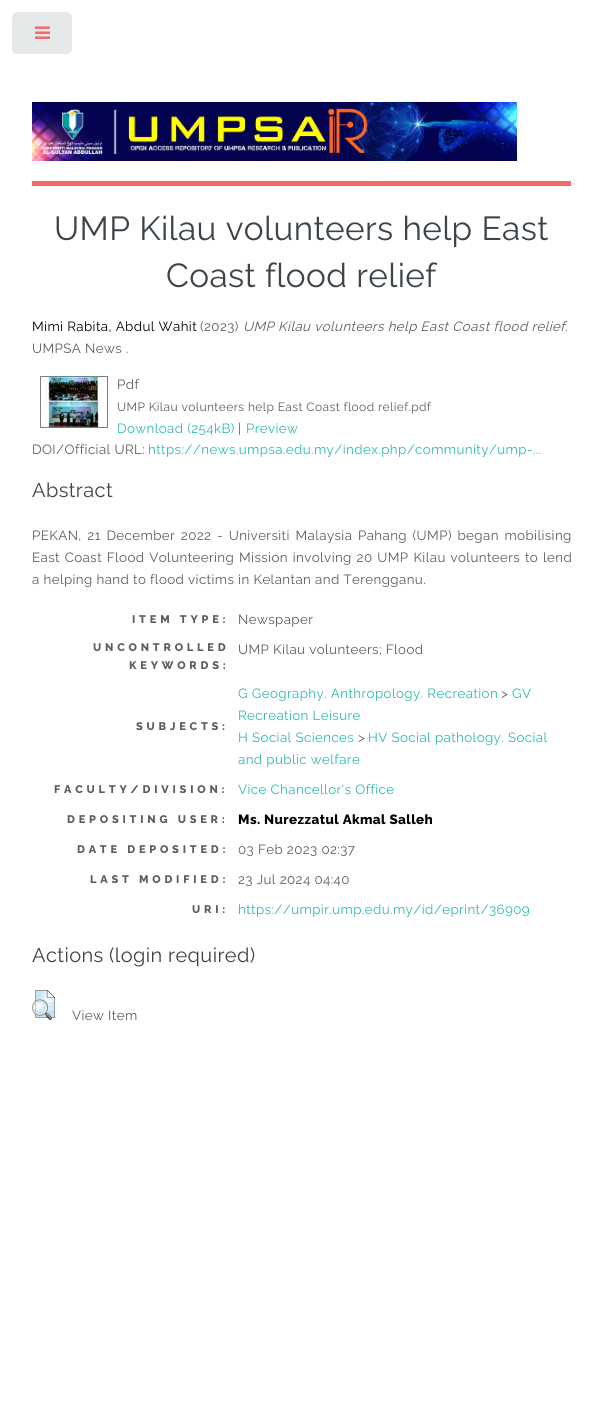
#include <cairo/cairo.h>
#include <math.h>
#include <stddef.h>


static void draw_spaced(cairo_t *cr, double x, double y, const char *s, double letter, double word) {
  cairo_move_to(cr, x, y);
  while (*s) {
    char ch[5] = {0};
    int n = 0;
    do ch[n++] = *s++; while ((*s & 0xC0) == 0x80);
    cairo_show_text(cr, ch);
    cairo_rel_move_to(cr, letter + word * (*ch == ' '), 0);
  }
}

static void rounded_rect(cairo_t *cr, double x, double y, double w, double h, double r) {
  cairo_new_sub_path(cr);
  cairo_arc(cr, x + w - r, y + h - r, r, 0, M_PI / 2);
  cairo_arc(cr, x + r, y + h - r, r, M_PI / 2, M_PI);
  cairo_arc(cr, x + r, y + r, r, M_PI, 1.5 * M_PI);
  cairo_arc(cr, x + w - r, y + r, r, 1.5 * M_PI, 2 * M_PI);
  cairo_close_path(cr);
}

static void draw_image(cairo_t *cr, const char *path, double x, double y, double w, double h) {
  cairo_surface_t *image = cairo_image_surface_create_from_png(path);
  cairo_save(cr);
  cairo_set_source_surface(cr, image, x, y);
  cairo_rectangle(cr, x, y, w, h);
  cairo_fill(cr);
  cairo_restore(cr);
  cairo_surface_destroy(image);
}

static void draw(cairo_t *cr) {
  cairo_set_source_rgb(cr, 1, 1, 1);
  cairo_paint(cr);
  cairo_set_source_rgb(cr, 230 / 255.0, 233 / 255.0, 233 / 255.0);
  rounded_rect(cr, 12, 12, 60, 42, 5);
  cairo_fill(cr);
  draw_image(cr, "images/1.png", 35, 26, 16, 13);
  cairo_set_source_rgb(cr, 245 / 255.0, 106 / 255.0, 106 / 255.0);
  cairo_rectangle(cr, 32, 181, 539, 5);
  cairo_fill(cr);
  draw_image(cr, "images/2.png", 32, 102, 485, 59);
  draw_image(cr, "images/3.png", 40, 376, 68, 52);
  draw_image(cr, "images/4.png", 32, 990, 23, 30);
  cairo_select_font_face(cr, "Raleway", CAIRO_FONT_SLANT_NORMAL, CAIRO_FONT_WEIGHT_NORMAL);
  cairo_set_font_size(cr, 33.3);
  cairo_set_source_rgb(cr, 61 / 255.0, 68 / 255.0, 73 / 255.0);
  draw_spaced(cr, 54, 240, "UMP Kilau volunteers help East", 0.4, 0);
  draw_spaced(cr, 166, 287, "Coast flood relief", 0.4, 0);
  cairo_set_font_size(cr, 13.35);
  cairo_set_source_rgb(cr, 0, 0, 0);
  draw_spaced(cr, 32, 331, "Mimi Rabita, Abdul Wahit", 0.4, 0);
  cairo_set_source_rgb(cr, 93 / 255.0, 93 / 255.0, 93 / 255.0);
  draw_spaced(cr, 200, 331, "(2023)", 0.4, 0);
  cairo_select_font_face(cr, "Raleway", CAIRO_FONT_SLANT_ITALIC, CAIRO_FONT_WEIGHT_NORMAL);
  draw_spaced(cr, 243, 331, "UMP Kilau volunteers help East Coast flood relief.", 0.4, 0);
  cairo_select_font_face(cr, "Raleway", CAIRO_FONT_SLANT_NORMAL, CAIRO_FONT_WEIGHT_NORMAL);
  draw_spaced(cr, 32, 353, "UMPSA News .", 0.4, 0);
  draw_spaced(cr, 117, 389, "Pdf", 0.4, 0);
  cairo_set_font_size(cr, 12);
  draw_spaced(cr, 117, 411, "UMP Kilau volunteers help East Coast flood relief.pdf", 0.4, 0);
  cairo_set_font_size(cr, 13.35);
  cairo_set_source_rgb(cr, 46 / 255.0, 186 / 255.0, 174 / 255.0);
  draw_spaced(cr, 117, 433, "Download (254kB)", 0.4, 0);
  cairo_set_source_rgb(cr, 93 / 255.0, 93 / 255.0, 93 / 255.0);
  draw_spaced(cr, 238, 433, "|", 0.4, 0);
  cairo_set_source_rgb(cr, 46 / 255.0, 186 / 255.0, 174 / 255.0);
  draw_spaced(cr, 246, 433, "Preview", 0.4, 0);
  cairo_set_source_rgb(cr, 93 / 255.0, 93 / 255.0, 93 / 255.0);
  draw_spaced(cr, 32, 454, "DOI/Official URL:", 0.4, 0);
  cairo_set_source_rgb(cr, 46 / 255.0, 186 / 255.0, 174 / 255.0);
  draw_spaced(cr, 148, 454, "https://news.umpsa.edu.my/index.php/community/ump-...", 0.4, 0);
  cairo_set_font_size(cr, 20);
  cairo_set_source_rgb(cr, 61 / 255.0, 68 / 255.0, 73 / 255.0);
  draw_spaced(cr, 32, 497, "Abstract", 0.4, 0);
  cairo_set_font_size(cr, 13.35);
  cairo_set_source_rgb(cr, 93 / 255.0, 93 / 255.0, 93 / 255.0);
  draw_spaced(cr, 32, 540, "PEKAN, 21 December 2022 - Universiti Malaysia Pahang (UMP) began mobilising", 0.4, 1.8);
  draw_spaced(cr, 32, 562, "East Coast Flood Volunteering Mission involving 20 UMP Kilau volunteers to lend", 0.4, 1);
  draw_spaced(cr, 32, 584, "a helping hand to flood victims in Kelantan and Terengganu.", 0.4, 0);
  cairo_select_font_face(cr, "Raleway ExtraBold", CAIRO_FONT_SLANT_NORMAL, CAIRO_FONT_WEIGHT_NORMAL);
  cairo_set_font_size(cr, 11);
  draw_spaced(cr, 132, 623, "ITEM TYPE:", 3.8, 0);
  cairo_select_font_face(cr, "Raleway", CAIRO_FONT_SLANT_NORMAL, CAIRO_FONT_WEIGHT_NORMAL);
  cairo_set_font_size(cr, 13.35);
  draw_spaced(cr, 238, 624, "Newspaper", 0.4, 0);
  cairo_select_font_face(cr, "Raleway ExtraBold", CAIRO_FONT_SLANT_NORMAL, CAIRO_FONT_WEIGHT_NORMAL);
  cairo_set_font_size(cr, 11);
  draw_spaced(cr, 93, 651, "UNCONTROLLED", 3.8, 0);
  draw_spaced(cr, 129, 669, "KEYWORDS:", 3.8, 0);
  cairo_select_font_face(cr, "Raleway", CAIRO_FONT_SLANT_NORMAL, CAIRO_FONT_WEIGHT_NORMAL);
  cairo_set_font_size(cr, 13.35);
  draw_spaced(cr, 238, 654, "UMP Kilau volunteers; Flood", 0.4, 0);
  cairo_select_font_face(cr, "Raleway ExtraBold", CAIRO_FONT_SLANT_NORMAL, CAIRO_FONT_WEIGHT_NORMAL);
  cairo_set_font_size(cr, 11);
  draw_spaced(cr, 136, 730, "SUBJECTS:", 3.8, 0);
  cairo_select_font_face(cr, "Raleway", CAIRO_FONT_SLANT_NORMAL, CAIRO_FONT_WEIGHT_NORMAL);
  cairo_set_font_size(cr, 13.35);
  cairo_set_source_rgb(cr, 46 / 255.0, 186 / 255.0, 174 / 255.0);
  draw_spaced(cr, 238, 698, "G Geography. Anthropology. Recreation", 0.4, 0);
  cairo_set_source_rgb(cr, 93 / 255.0, 93 / 255.0, 93 / 255.0);
  draw_spaced(cr, 501, 698, ">", 0.4, 0);
  cairo_set_source_rgb(cr, 46 / 255.0, 186 / 255.0, 174 / 255.0);
  draw_spaced(cr, 512, 698, "GV", 0.4, 0);
  draw_spaced(cr, 238, 720, "Recreation Leisure", 0.4, 0);
  draw_spaced(cr, 238, 742, "H Social Sciences", 0.4, 0);
  cairo_set_source_rgb(cr, 93 / 255.0, 93 / 255.0, 93 / 255.0);
  draw_spaced(cr, 358, 742, ">", 0.4, 0);
  cairo_set_source_rgb(cr, 46 / 255.0, 186 / 255.0, 174 / 255.0);
  draw_spaced(cr, 368, 742, "HV Social pathology. Social", 0.4, 0);
  draw_spaced(cr, 238, 764, "and public welfare", 0.4, 0);
  cairo_select_font_face(cr, "Raleway ExtraBold", CAIRO_FONT_SLANT_NORMAL, CAIRO_FONT_WEIGHT_NORMAL);
  cairo_set_font_size(cr, 11);
  cairo_set_source_rgb(cr, 93 / 255.0, 93 / 255.0, 93 / 255.0);
  draw_spaced(cr, 54, 793, "FACULTY/DIVISION:", 3.8, 0);
  cairo_select_font_face(cr, "Raleway", CAIRO_FONT_SLANT_NORMAL, CAIRO_FONT_WEIGHT_NORMAL);
  cairo_set_font_size(cr, 13.35);
  cairo_set_source_rgb(cr, 46 / 255.0, 186 / 255.0, 174 / 255.0);
  draw_spaced(cr, 238, 794, "Vice Chancellor's Office", 0.4, 0);
  cairo_select_font_face(cr, "Raleway ExtraBold", CAIRO_FONT_SLANT_NORMAL, CAIRO_FONT_WEIGHT_NORMAL);
  cairo_set_font_size(cr, 11);
  cairo_set_source_rgb(cr, 93 / 255.0, 93 / 255.0, 93 / 255.0);
  draw_spaced(cr, 67, 823, "DEPOSITING USER:", 3.8, 0);
  cairo_set_font_size(cr, 13.35);
  cairo_set_source_rgb(cr, 0, 0, 0);
  draw_spaced(cr, 238, 824, "Ms. Nurezzatul Akmal Salleh", 0.4, 0);
  cairo_set_font_size(cr, 11);
  cairo_set_source_rgb(cr, 93 / 255.0, 93 / 255.0, 93 / 255.0);
  draw_spaced(cr, 77, 853, "DATE DEPOSITED:", 3.8, 0);
  cairo_select_font_face(cr, "Raleway", CAIRO_FONT_SLANT_NORMAL, CAIRO_FONT_WEIGHT_NORMAL);
  cairo_set_font_size(cr, 13.35);
  draw_spaced(cr, 238, 854, "03 Feb 2023 02:37", 0.4, 0);
  cairo_select_font_face(cr, "Raleway ExtraBold", CAIRO_FONT_SLANT_NORMAL, CAIRO_FONT_WEIGHT_NORMAL);
  cairo_set_font_size(cr, 11);
  draw_spaced(cr, 90, 883, "LAST MODIFIED:", 3.8, 0);
  cairo_select_font_face(cr, "Raleway", CAIRO_FONT_SLANT_NORMAL, CAIRO_FONT_WEIGHT_NORMAL);
  cairo_set_font_size(cr, 13.35);
  draw_spaced(cr, 238, 884, "23 Jul 2024 04:40", 0.4, 0);
  cairo_select_font_face(cr, "Raleway ExtraBold", CAIRO_FONT_SLANT_NORMAL, CAIRO_FONT_WEIGHT_NORMAL);
  cairo_set_font_size(cr, 11);
  draw_spaced(cr, 192, 913, "URI:", 3.8, 0);
  cairo_select_font_face(cr, "Raleway", CAIRO_FONT_SLANT_NORMAL, CAIRO_FONT_WEIGHT_NORMAL);
  cairo_set_font_size(cr, 13.35);
  cairo_set_source_rgb(cr, 46 / 255.0, 186 / 255.0, 174 / 255.0);
  draw_spaced(cr, 238, 914, "https://umpir.ump.edu.my/id/eprint/36909", 0.4, 0);
  cairo_set_font_size(cr, 20);
  cairo_set_source_rgb(cr, 61 / 255.0, 68 / 255.0, 73 / 255.0);
  draw_spaced(cr, 32, 962, "Actions (login required)", 0.4, 0);
  cairo_set_font_size(cr, 13.35);
  cairo_set_source_rgb(cr, 93 / 255.0, 93 / 255.0, 93 / 255.0);
  draw_spaced(cr, 72, 1020, "View Item", 0.4, 0);
}

int main(void) {
  cairo_surface_t *surface = cairo_image_surface_create(CAIRO_FORMAT_RGB24, 603, 1417);
  cairo_t *cr = cairo_create(surface);
  cairo_font_options_t *options = cairo_font_options_create();
  cairo_font_options_set_hint_metrics(options, CAIRO_HINT_METRICS_OFF);
  cairo_font_options_set_hint_style(options, CAIRO_HINT_STYLE_NONE);
  cairo_set_font_options(cr, options);
  cairo_set_miter_limit(cr, 4);
  draw(cr);
  cairo_surface_write_to_png(surface, "out.png");
  cairo_font_options_destroy(options);
  cairo_destroy(cr);
  cairo_surface_destroy(surface);
  return 0;
}
